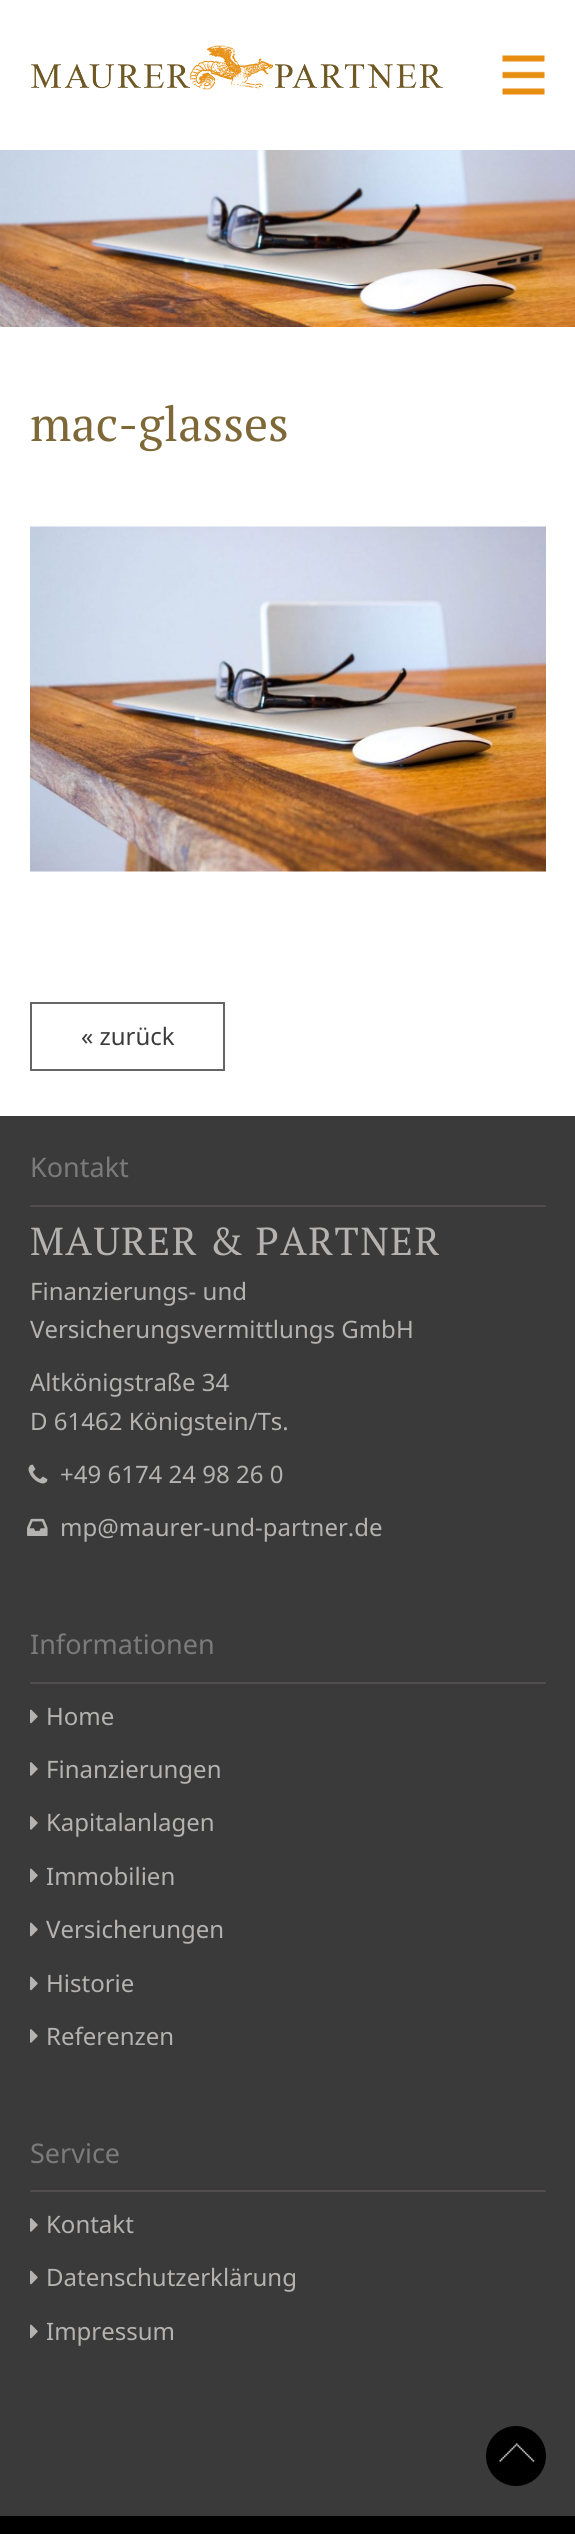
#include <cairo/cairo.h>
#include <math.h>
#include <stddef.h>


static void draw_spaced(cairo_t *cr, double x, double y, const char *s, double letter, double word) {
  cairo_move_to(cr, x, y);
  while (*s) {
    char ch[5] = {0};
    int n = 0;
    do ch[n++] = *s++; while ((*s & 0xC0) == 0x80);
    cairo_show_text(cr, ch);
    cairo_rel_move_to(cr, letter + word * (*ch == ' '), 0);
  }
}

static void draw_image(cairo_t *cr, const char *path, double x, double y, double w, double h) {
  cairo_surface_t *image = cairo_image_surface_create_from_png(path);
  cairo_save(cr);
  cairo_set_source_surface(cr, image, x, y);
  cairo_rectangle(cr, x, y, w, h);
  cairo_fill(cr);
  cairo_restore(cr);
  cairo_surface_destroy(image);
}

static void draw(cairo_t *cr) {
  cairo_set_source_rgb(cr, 1, 1, 1);
  cairo_paint(cr);
  draw_image(cr, "images/1.png", 31, 45, 412, 45);
  draw_image(cr, "images/2.png", 502, 55, 43, 40);
  draw_image(cr, "images/3.png", 0, 150, 575, 177);
  draw_image(cr, "images/4.png", 30, 526, 516, 346);
  cairo_rectangle(cr, 31, 1003, 193, 67);
  cairo_set_source_rgb(cr, 101 / 255.0, 101 / 255.0, 101 / 255.0);
  cairo_stroke(cr);
  cairo_set_source_rgb(cr, 58 / 255.0, 58 / 255.0, 58 / 255.0);
  cairo_rectangle(cr, 0, 1116, 575, 1400);
  cairo_fill(cr);
  cairo_set_source_rgb(cr, 82 / 255.0, 78 / 255.0, 77 / 255.0);
  cairo_rectangle(cr, 30, 1205, 516, 2);
  cairo_fill(cr);
  draw_image(cr, "images/5.png", 28, 1464, 20, 20);
  draw_image(cr, "images/6.png", 27, 1518, 21, 18);
  cairo_rectangle(cr, 30, 1682, 516, 2);
  cairo_fill(cr);
  draw_image(cr, "images/7.png", 30, 1709, 8, 15);
  draw_image(cr, "images/8.png", 30, 1762, 8, 14);
  draw_image(cr, "images/8.png", 30, 1816, 8, 14);
  draw_image(cr, "images/7.png", 30, 1868, 8, 15);
  draw_image(cr, "images/7.png", 30, 1922, 8, 15);
  draw_image(cr, "images/7.png", 30, 1976, 8, 15);
  draw_image(cr, "images/8.png", 30, 2029, 8, 14);
  cairo_rectangle(cr, 30, 2190, 516, 2);
  cairo_fill(cr);
  draw_image(cr, "images/8.png", 30, 2218, 8, 14);
  draw_image(cr, "images/7.png", 30, 2270, 8, 15);
  draw_image(cr, "images/7.png", 30, 2324, 8, 15);
  cairo_set_source_rgb(cr, 0, 0, 0);
  cairo_arc(cr, 516, 2456, 30, 0, 2 * M_PI);
  cairo_fill(cr);
  draw_image(cr, "images/9.png", 499, 2443, 36, 19);
  cairo_rectangle(cr, 0, 2516, 575, 18);
  cairo_fill(cr);
  cairo_select_font_face(cr, "PT Serif", CAIRO_FONT_SLANT_NORMAL, CAIRO_FONT_WEIGHT_NORMAL);
  cairo_set_font_size(cr, 48);
  cairo_set_source_rgb(cr, 126 / 255.0, 104 / 255.0, 56 / 255.0);
  cairo_move_to(cr, 30, 441);
  cairo_show_text(cr, "mac-glasses");
  cairo_select_font_face(cr, "Noto Sans", CAIRO_FONT_SLANT_NORMAL, CAIRO_FONT_WEIGHT_NORMAL);
  cairo_set_font_size(cr, 24);
  cairo_set_source_rgb(cr, 59 / 255.0, 59 / 255.0, 59 / 255.0);
  cairo_move_to(cr, 81, 1045);
  cairo_show_text(cr, "« zurück");
  cairo_set_font_size(cr, 27);
  cairo_set_source_rgb(cr, 123 / 255.0, 123 / 255.0, 123 / 255.0);
  cairo_move_to(cr, 30, 1177);
  cairo_show_text(cr, "Kontakt");
  cairo_select_font_face(cr, "PT Serif", CAIRO_FONT_SLANT_NORMAL, CAIRO_FONT_WEIGHT_NORMAL);
  cairo_set_font_size(cr, 39);
  cairo_set_source_rgb(cr, 180 / 255.0, 179 / 255.0, 178 / 255.0);
  draw_spaced(cr, 30, 1255, "MAURER & PARTNER", 1.5, 0);
  cairo_select_font_face(cr, "Noto Sans", CAIRO_FONT_SLANT_NORMAL, CAIRO_FONT_WEIGHT_NORMAL);
  cairo_set_font_size(cr, 24);
  cairo_move_to(cr, 30, 1300);
  cairo_show_text(cr, "Finanzierungs- und");
  cairo_move_to(cr, 30, 1338);
  cairo_show_text(cr, "Versicherungsvermittlungs GmbH");
  cairo_move_to(cr, 30, 1391);
  cairo_show_text(cr, "Altkönigstraße 34");
  cairo_move_to(cr, 30, 1430);
  cairo_show_text(cr, "D 61462 Königstein/Ts.");
  cairo_move_to(cr, 60, 1483);
  cairo_show_text(cr, "+49 6174 24 98 26 0");
  cairo_move_to(cr, 60, 1536);
  cairo_show_text(cr, "mp@maurer-und-partner.de");
  cairo_set_font_size(cr, 27);
  cairo_set_source_rgb(cr, 123 / 255.0, 123 / 255.0, 123 / 255.0);
  cairo_move_to(cr, 30, 1654);
  cairo_show_text(cr, "Informationen");
  cairo_set_font_size(cr, 24);
  cairo_set_source_rgb(cr, 180 / 255.0, 179 / 255.0, 178 / 255.0);
  cairo_move_to(cr, 46, 1725);
  cairo_show_text(cr, "Home");
  cairo_move_to(cr, 46, 1778);
  cairo_show_text(cr, "Finanzierungen");
  cairo_move_to(cr, 46, 1831);
  cairo_show_text(cr, "Kapitalanlagen");
  cairo_move_to(cr, 46, 1885);
  cairo_show_text(cr, "Immobilien");
  cairo_move_to(cr, 46, 1938);
  cairo_show_text(cr, "Versicherungen");
  cairo_move_to(cr, 46, 1992);
  cairo_show_text(cr, "Historie");
  cairo_move_to(cr, 46, 2045);
  cairo_show_text(cr, "Referenzen");
  cairo_set_font_size(cr, 27);
  cairo_set_source_rgb(cr, 123 / 255.0, 123 / 255.0, 123 / 255.0);
  cairo_move_to(cr, 30, 2163);
  cairo_show_text(cr, "Service");
  cairo_set_font_size(cr, 24);
  cairo_set_source_rgb(cr, 180 / 255.0, 179 / 255.0, 178 / 255.0);
  cairo_move_to(cr, 46, 2233);
  cairo_show_text(cr, "Kontakt");
  cairo_move_to(cr, 46, 2286);
  cairo_show_text(cr, "Datenschutzerklärung");
  cairo_move_to(cr, 46, 2340);
  cairo_show_text(cr, "Impressum");
}

int main(void) {
  cairo_surface_t *surface = cairo_image_surface_create(CAIRO_FORMAT_RGB24, 575, 2534);
  cairo_t *cr = cairo_create(surface);
  cairo_font_options_t *options = cairo_font_options_create();
  cairo_font_options_set_hint_metrics(options, CAIRO_HINT_METRICS_OFF);
  cairo_font_options_set_hint_style(options, CAIRO_HINT_STYLE_NONE);
  cairo_set_font_options(cr, options);
  cairo_set_miter_limit(cr, 4);
  draw(cr);
  cairo_surface_write_to_png(surface, "out.png");
  cairo_font_options_destroy(options);
  cairo_destroy(cr);
  cairo_surface_destroy(surface);
  return 0;
}
